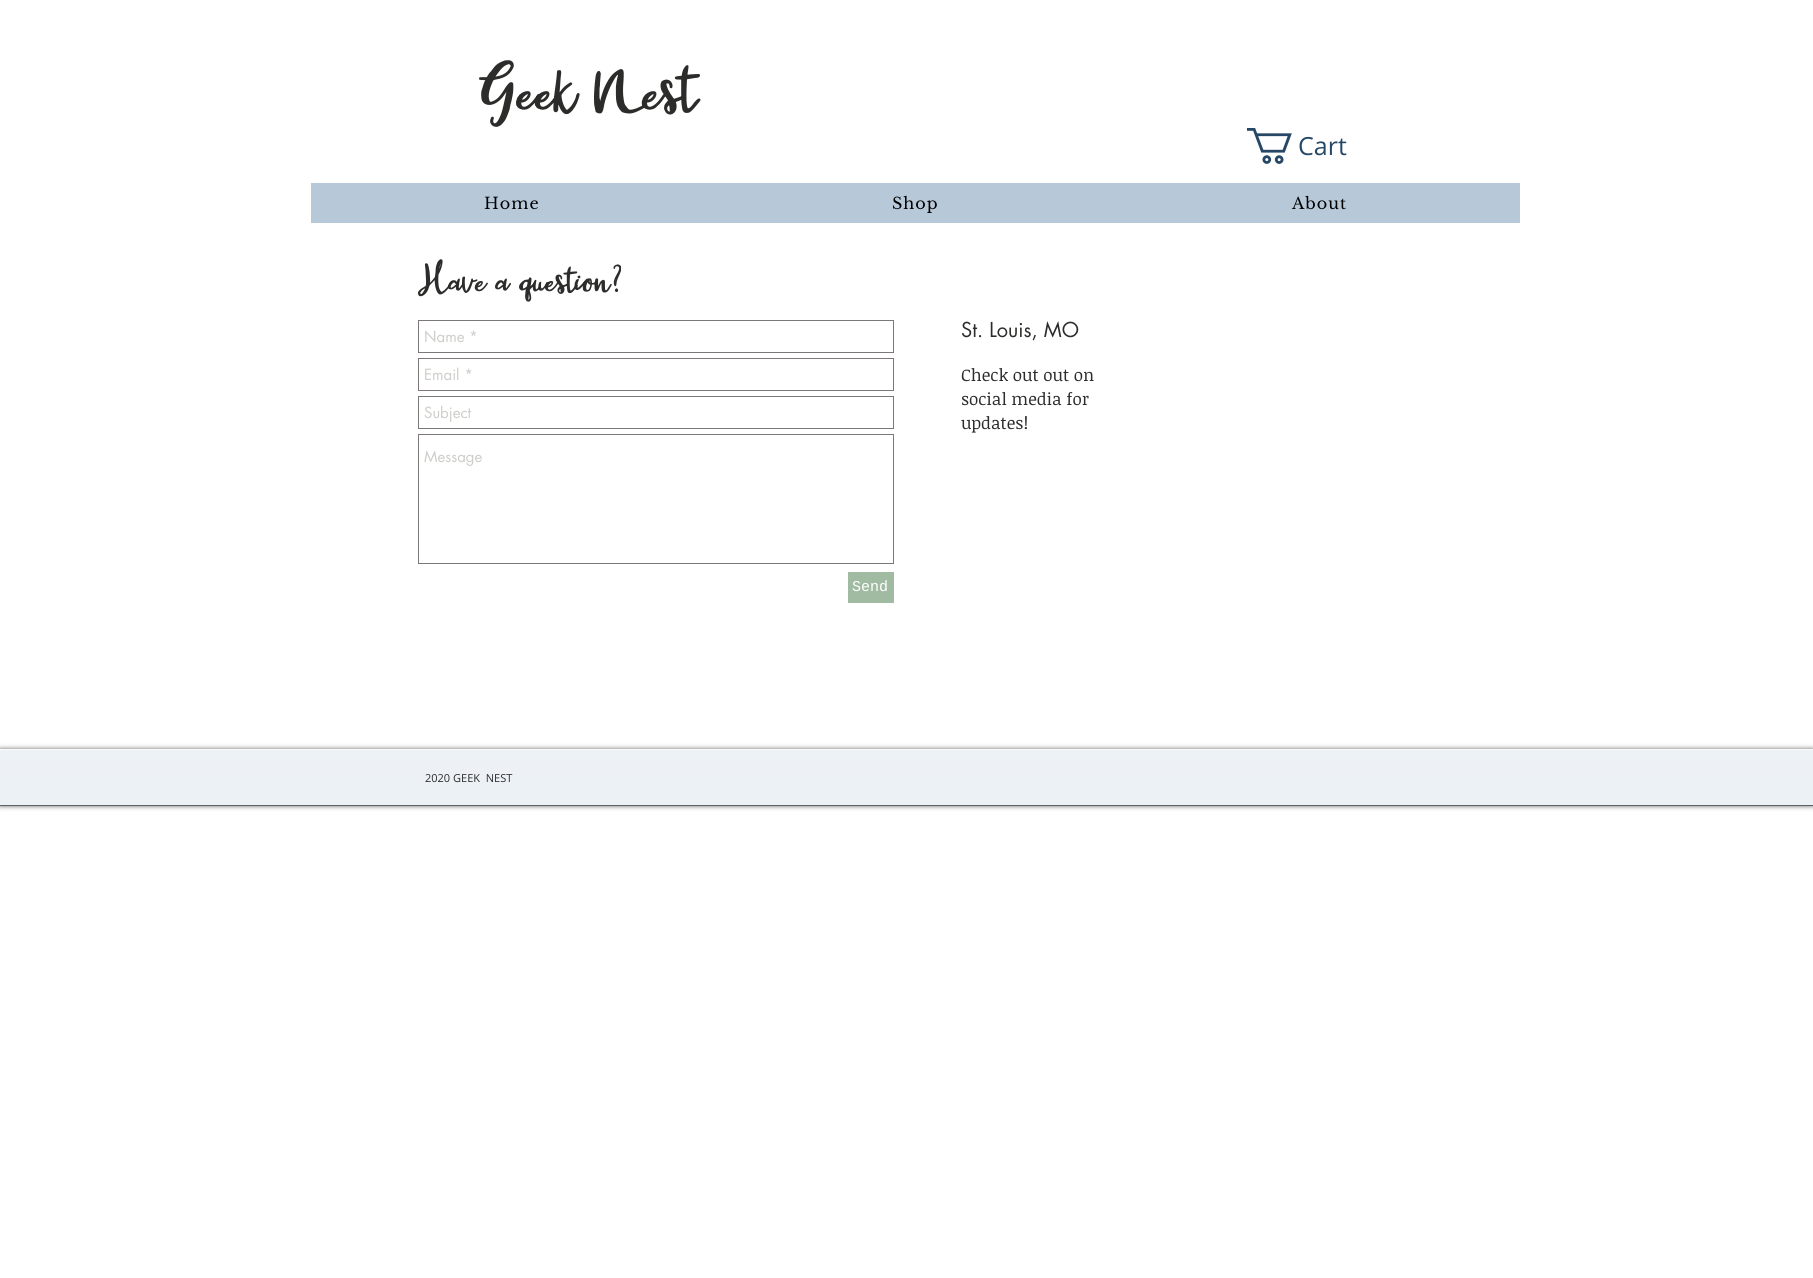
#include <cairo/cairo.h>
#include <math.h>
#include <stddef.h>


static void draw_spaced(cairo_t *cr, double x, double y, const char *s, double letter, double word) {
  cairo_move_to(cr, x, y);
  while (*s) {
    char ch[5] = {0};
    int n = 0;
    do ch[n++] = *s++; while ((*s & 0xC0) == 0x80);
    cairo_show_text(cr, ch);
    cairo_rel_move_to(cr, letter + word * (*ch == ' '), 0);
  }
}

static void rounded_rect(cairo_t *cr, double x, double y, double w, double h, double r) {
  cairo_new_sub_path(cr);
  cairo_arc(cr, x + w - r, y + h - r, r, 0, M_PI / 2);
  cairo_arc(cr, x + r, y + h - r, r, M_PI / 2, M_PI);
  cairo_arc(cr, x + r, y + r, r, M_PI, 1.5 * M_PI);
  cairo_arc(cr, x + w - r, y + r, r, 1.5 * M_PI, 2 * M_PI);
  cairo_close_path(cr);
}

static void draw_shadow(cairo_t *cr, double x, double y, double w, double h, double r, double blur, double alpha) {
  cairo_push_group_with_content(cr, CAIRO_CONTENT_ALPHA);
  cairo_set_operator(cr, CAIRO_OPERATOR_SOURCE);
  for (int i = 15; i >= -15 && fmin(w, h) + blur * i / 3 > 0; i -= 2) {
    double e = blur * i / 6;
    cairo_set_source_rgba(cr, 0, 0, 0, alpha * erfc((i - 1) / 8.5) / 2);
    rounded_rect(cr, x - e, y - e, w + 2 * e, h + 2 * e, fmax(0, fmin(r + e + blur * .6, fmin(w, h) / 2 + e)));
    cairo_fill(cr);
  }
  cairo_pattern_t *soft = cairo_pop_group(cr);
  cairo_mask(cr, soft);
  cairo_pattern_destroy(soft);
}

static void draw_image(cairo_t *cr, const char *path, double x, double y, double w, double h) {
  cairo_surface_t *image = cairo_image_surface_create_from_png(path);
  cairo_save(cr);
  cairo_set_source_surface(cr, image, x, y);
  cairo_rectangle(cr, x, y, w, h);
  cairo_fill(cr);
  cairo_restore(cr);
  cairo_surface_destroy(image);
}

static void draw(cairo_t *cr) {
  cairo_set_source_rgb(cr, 1, 1, 1);
  cairo_paint(cr);
  draw_image(cr, "images/1.png", 1247, 128, 45, 36);
  cairo_set_source_rgb(cr, 183 / 255.0, 201 / 255.0, 217 / 255.0);
  cairo_rectangle(cr, 311, 183, 1209, 40);
  cairo_fill(cr);
  cairo_rectangle(cr, 418.5, 320.5, 475, 32);
  cairo_set_source_rgb(cr, 124 / 255.0, 120 / 255.0, 120 / 255.0);
  cairo_set_line_width(cr, 1);
  cairo_stroke(cr);
  cairo_rectangle(cr, 418.5, 358.5, 475, 32);
  cairo_stroke(cr);
  cairo_rectangle(cr, 418.5, 396.5, 475, 32);
  cairo_stroke(cr);
  cairo_rectangle(cr, 418.5, 434.5, 475, 129);
  cairo_stroke(cr);
  cairo_set_source_rgb(cr, 161 / 255.0, 187 / 255.0, 162 / 255.0);
  cairo_rectangle(cr, 848, 572, 46, 31);
  cairo_fill(cr);
  cairo_set_source_rgb(cr, 0, 0, 0);
  draw_shadow(cr, 0, 749, 1813, 57, 0, 2.5, 0.6);
  cairo_set_source_rgb(cr, 231 / 255.0, 237 / 255.0, 243 / 255.0);
  cairo_rectangle(cr, 0, 750, 1813, 55);
  cairo_fill(cr);
  draw_image(cr, "images/2.png", 0, 750, 1813, 55);
  cairo_set_source_rgb(cr, 94 / 255.0, 96 / 255.0, 98 / 255.0);
  cairo_rectangle(cr, 0, 805, 1813, 1);
  cairo_fill(cr);
  cairo_set_source_rgb(cr, 248 / 255.0, 250 / 255.0, 251 / 255.0);
  cairo_rectangle(cr, 0, 749, 1813, 1);
  cairo_fill(cr);
  cairo_select_font_face(cr, "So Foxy", CAIRO_FONT_SLANT_NORMAL, CAIRO_FONT_WEIGHT_NORMAL);
  cairo_set_font_size(cr, 72);
  cairo_set_source_rgb(cr, 44 / 255.0, 44 / 255.0, 43 / 255.0);
  cairo_move_to(cr, 479, 111);
  cairo_show_text(cr, "Geek Nest");
  cairo_select_font_face(cr, "Open Sans", CAIRO_FONT_SLANT_NORMAL, CAIRO_FONT_WEIGHT_NORMAL);
  cairo_set_font_size(cr, 25);
  cairo_set_source_rgb(cr, 38 / 255.0, 72 / 255.0, 102 / 255.0);
  cairo_move_to(cr, 1298, 155);
  cairo_show_text(cr, "Cart");
  cairo_select_font_face(cr, "Libre Baskerville", CAIRO_FONT_SLANT_NORMAL, CAIRO_FONT_WEIGHT_NORMAL);
  cairo_set_font_size(cr, 16);
  cairo_set_source_rgb(cr, 0, 0, 0);
  draw_spaced(cr, 484, 209, "Home", 1, 0);
  draw_spaced(cr, 892, 209, "Shop", 1, 0);
  draw_spaced(cr, 1292, 209, "About", 1, 0);
  cairo_select_font_face(cr, "So Foxy", CAIRO_FONT_SLANT_NORMAL, CAIRO_FONT_WEIGHT_NORMAL);
  cairo_set_font_size(cr, 40);
  cairo_set_source_rgb(cr, 44 / 255.0, 44 / 255.0, 43 / 255.0);
  cairo_move_to(cr, 418, 292);
  cairo_show_text(cr, "Have a question?");
  cairo_select_font_face(cr, "futura", CAIRO_FONT_SLANT_NORMAL, CAIRO_FONT_WEIGHT_NORMAL);
  cairo_set_font_size(cr, 15);
  cairo_set_source_rgb(cr, 205 / 255.0, 205 / 255.0, 201 / 255.0);
  cairo_move_to(cr, 424, 342);
  cairo_show_text(cr, "Name *");
  cairo_move_to(cr, 424, 380);
  cairo_show_text(cr, "Email *");
  cairo_move_to(cr, 424, 418);
  cairo_show_text(cr, "Subject");
  cairo_move_to(cr, 424, 462);
  cairo_show_text(cr, "Message");
  cairo_select_font_face(cr, "Liberation Mono", CAIRO_FONT_SLANT_NORMAL, CAIRO_FONT_WEIGHT_NORMAL);
  cairo_set_source_rgb(cr, 1, 1, 1);
  cairo_move_to(cr, 852, 591);
  cairo_show_text(cr, "Send");
  cairo_select_font_face(cr, "futura", CAIRO_FONT_SLANT_NORMAL, CAIRO_FONT_WEIGHT_NORMAL);
  cairo_set_font_size(cr, 20);
  cairo_set_source_rgb(cr, 44 / 255.0, 44 / 255.0, 43 / 255.0);
  cairo_move_to(cr, 961, 337);
  cairo_show_text(cr, "St. Louis, MO");
  cairo_select_font_face(cr, "Noticia Text", CAIRO_FONT_SLANT_NORMAL, CAIRO_FONT_WEIGHT_NORMAL);
  cairo_set_font_size(cr, 17);
  cairo_move_to(cr, 961, 381);
  cairo_show_text(cr, "Check out out on");
  cairo_move_to(cr, 961, 405);
  cairo_show_text(cr, "social media for");
  cairo_move_to(cr, 961, 429);
  cairo_show_text(cr, "updates!");
  cairo_select_font_face(cr, "Open Sans", CAIRO_FONT_SLANT_NORMAL, CAIRO_FONT_WEIGHT_NORMAL);
  cairo_set_font_size(cr, 11);
  cairo_move_to(cr, 425, 782);
  cairo_show_text(cr, "2020 GEEK  NEST");
}

int main(void) {
  cairo_surface_t *surface = cairo_image_surface_create(CAIRO_FORMAT_RGB24, 1813, 1278);
  cairo_t *cr = cairo_create(surface);
  cairo_font_options_t *options = cairo_font_options_create();
  cairo_font_options_set_hint_metrics(options, CAIRO_HINT_METRICS_OFF);
  cairo_font_options_set_hint_style(options, CAIRO_HINT_STYLE_NONE);
  cairo_set_font_options(cr, options);
  cairo_set_miter_limit(cr, 4);
  draw(cr);
  cairo_surface_write_to_png(surface, "out.png");
  cairo_font_options_destroy(options);
  cairo_destroy(cr);
  cairo_surface_destroy(surface);
  return 0;
}
